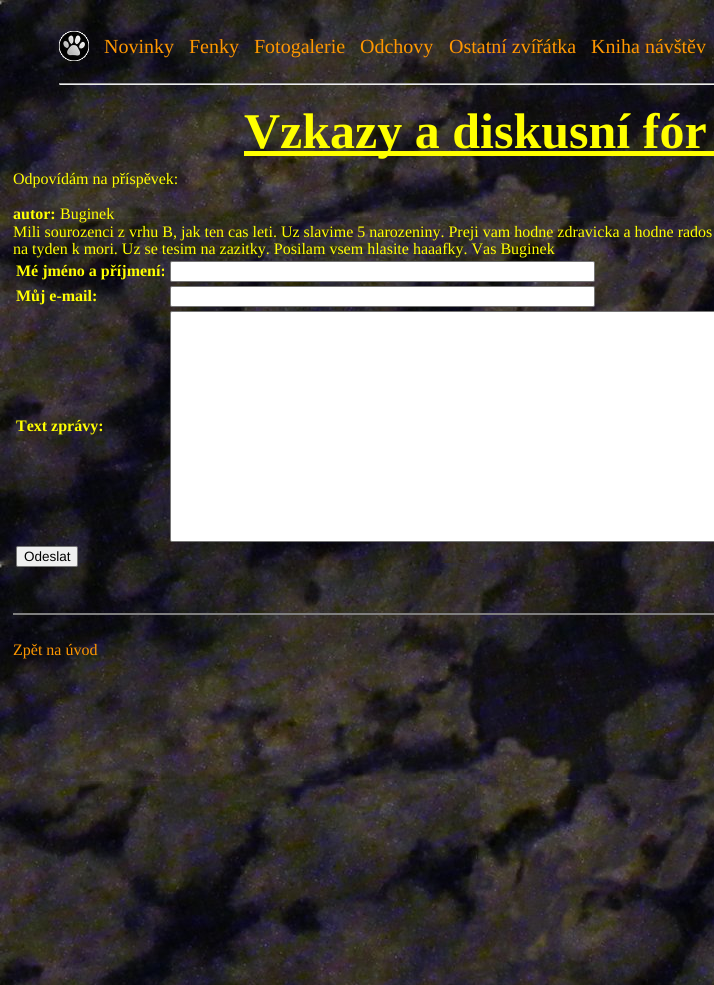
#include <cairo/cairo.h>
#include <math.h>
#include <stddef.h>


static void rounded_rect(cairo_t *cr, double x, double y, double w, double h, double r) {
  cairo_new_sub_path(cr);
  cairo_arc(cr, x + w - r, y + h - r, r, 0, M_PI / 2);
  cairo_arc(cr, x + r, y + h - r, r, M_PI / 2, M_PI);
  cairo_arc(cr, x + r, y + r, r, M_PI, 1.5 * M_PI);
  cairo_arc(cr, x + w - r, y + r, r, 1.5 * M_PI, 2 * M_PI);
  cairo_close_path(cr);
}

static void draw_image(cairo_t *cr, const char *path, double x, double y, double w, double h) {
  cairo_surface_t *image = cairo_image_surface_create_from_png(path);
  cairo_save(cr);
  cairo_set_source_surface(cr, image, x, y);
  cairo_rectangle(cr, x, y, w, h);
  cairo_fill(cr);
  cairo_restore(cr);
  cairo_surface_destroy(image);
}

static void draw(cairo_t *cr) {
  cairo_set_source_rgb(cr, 1, 1, 1);
  cairo_paint(cr);
  draw_image(cr, "images/1.png", 0, 0, 714, 985);
  draw_image(cr, "images/2.png", 59, 31, 30, 30);
  cairo_set_source_rgb(cr, 159 / 255.0, 159 / 255.0, 159 / 255.0);
  cairo_rectangle(cr, 59, 83, 655, 1);
  cairo_fill(cr);
  cairo_set_source_rgb(cr, 238 / 255.0, 238 / 255.0, 238 / 255.0);
  cairo_rectangle(cr, 59, 84, 655, 1);
  cairo_fill(cr);
  cairo_set_source_rgb(cr, 159 / 255.0, 159 / 255.0, 159 / 255.0);
  cairo_rectangle(cr, 59, 83, 1, 2);
  cairo_fill(cr);
  cairo_set_source_rgb(cr, 1, 1, 0);
  cairo_rectangle(cr, 244, 151, 470, 5);
  cairo_fill(cr);
  cairo_set_source_rgb(cr, 1, 1, 1);
  rounded_rect(cr, 170.5, 261.5, 424, 20, 1.5);
  cairo_fill_preserve(cr);
  cairo_set_source_rgb(cr, 118 / 255.0, 118 / 255.0, 118 / 255.0);
  cairo_set_line_width(cr, 1);
  cairo_stroke(cr);
  cairo_set_source_rgb(cr, 1, 1, 1);
  rounded_rect(cr, 170.5, 286.5, 424, 20, 1.5);
  cairo_fill_preserve(cr);
  cairo_set_source_rgb(cr, 118 / 255.0, 118 / 255.0, 118 / 255.0);
  cairo_stroke(cr);
  cairo_set_source_rgb(cr, 1, 1, 1);
  rounded_rect(cr, 170.5, 311.5, 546, 230, 1.5);
  cairo_fill_preserve(cr);
  cairo_set_source_rgb(cr, 118 / 255.0, 118 / 255.0, 118 / 255.0);
  cairo_stroke(cr);
  cairo_set_source_rgb(cr, 239 / 255.0, 239 / 255.0, 239 / 255.0);
  rounded_rect(cr, 16.5, 546.5, 61, 20, 1.5);
  cairo_fill_preserve(cr);
  cairo_set_source_rgb(cr, 118 / 255.0, 118 / 255.0, 118 / 255.0);
  cairo_stroke(cr);
  cairo_set_source_rgb(cr, 128 / 255.0, 128 / 255.0, 128 / 255.0);
  cairo_rectangle(cr, 13, 613, 701, 2);
  cairo_fill(cr);
  cairo_select_font_face(cr, "Liberation Serif", CAIRO_FONT_SLANT_NORMAL, CAIRO_FONT_WEIGHT_NORMAL);
  cairo_set_font_size(cr, 20);
  cairo_set_source_rgb(cr, 1, 151 / 255.0, 0);
  cairo_move_to(cr, 104, 53);
  cairo_show_text(cr, "Novinky");
  cairo_move_to(cr, 189, 53);
  cairo_show_text(cr, "Fenky");
  cairo_move_to(cr, 254, 53);
  cairo_show_text(cr, "Fotogalerie");
  cairo_move_to(cr, 360, 53);
  cairo_show_text(cr, "Odchovy");
  cairo_move_to(cr, 449, 53);
  cairo_show_text(cr, "Ostatní zvířátka");
  cairo_move_to(cr, 591, 53);
  cairo_show_text(cr, "Kniha návštěv");
  cairo_select_font_face(cr, "Liberation Serif", CAIRO_FONT_SLANT_NORMAL, CAIRO_FONT_WEIGHT_BOLD);
  cairo_set_font_size(cr, 50);
  cairo_set_source_rgb(cr, 1, 1, 0);
  cairo_move_to(cr, 244, 148);
  cairo_show_text(cr, "Vzkazy a diskusní fór");
  cairo_select_font_face(cr, "Liberation Serif", CAIRO_FONT_SLANT_NORMAL, CAIRO_FONT_WEIGHT_NORMAL);
  cairo_set_font_size(cr, 16);
  cairo_move_to(cr, 13, 184);
  cairo_show_text(cr, "Odpovídám na příspěvek:");
  cairo_select_font_face(cr, "Liberation Serif", CAIRO_FONT_SLANT_NORMAL, CAIRO_FONT_WEIGHT_BOLD);
  cairo_move_to(cr, 13, 219);
  cairo_show_text(cr, "autor:");
  cairo_select_font_face(cr, "Liberation Serif", CAIRO_FONT_SLANT_NORMAL, CAIRO_FONT_WEIGHT_NORMAL);
  cairo_move_to(cr, 60, 219);
  cairo_show_text(cr, "Buginek");
  cairo_move_to(cr, 13, 237);
  cairo_show_text(cr, "Mili sourozenci z vrhu B, jak ten cas leti. Uz slavime 5 narozeniny. Preji vam hodne zdravicka a hodne rados");
  cairo_move_to(cr, 13, 254);
  cairo_show_text(cr, "na tyden k mori. Uz se tesim na zazitky. Posilam vsem hlasite haaafky. Vas Buginek");
  cairo_select_font_face(cr, "Liberation Serif", CAIRO_FONT_SLANT_NORMAL, CAIRO_FONT_WEIGHT_BOLD);
  cairo_move_to(cr, 16, 276);
  cairo_show_text(cr, "Mé jméno a příjmení:");
  cairo_move_to(cr, 16, 301);
  cairo_show_text(cr, "Můj e-mail:");
  cairo_move_to(cr, 16, 431);
  cairo_show_text(cr, "Text zprávy:");
  cairo_select_font_face(cr, "Liberation Sans", CAIRO_FONT_SLANT_NORMAL, CAIRO_FONT_WEIGHT_NORMAL);
  cairo_set_font_size(cr, 13.5);
  cairo_set_source_rgb(cr, 0, 0, 0);
  cairo_move_to(cr, 24, 561);
  cairo_show_text(cr, "Odeslat");
  cairo_select_font_face(cr, "Liberation Serif", CAIRO_FONT_SLANT_NORMAL, CAIRO_FONT_WEIGHT_NORMAL);
  cairo_set_font_size(cr, 16);
  cairo_set_source_rgb(cr, 1, 151 / 255.0, 0);
  cairo_move_to(cr, 13, 655);
  cairo_show_text(cr, "Zpět na úvod");
}

int main(void) {
  cairo_surface_t *surface = cairo_image_surface_create(CAIRO_FORMAT_RGB24, 714, 985);
  cairo_t *cr = cairo_create(surface);
  cairo_font_options_t *options = cairo_font_options_create();
  cairo_font_options_set_hint_metrics(options, CAIRO_HINT_METRICS_OFF);
  cairo_font_options_set_hint_style(options, CAIRO_HINT_STYLE_NONE);
  cairo_set_font_options(cr, options);
  cairo_set_miter_limit(cr, 4);
  draw(cr);
  cairo_surface_write_to_png(surface, "out.png");
  cairo_font_options_destroy(options);
  cairo_destroy(cr);
  cairo_surface_destroy(surface);
  return 0;
}
